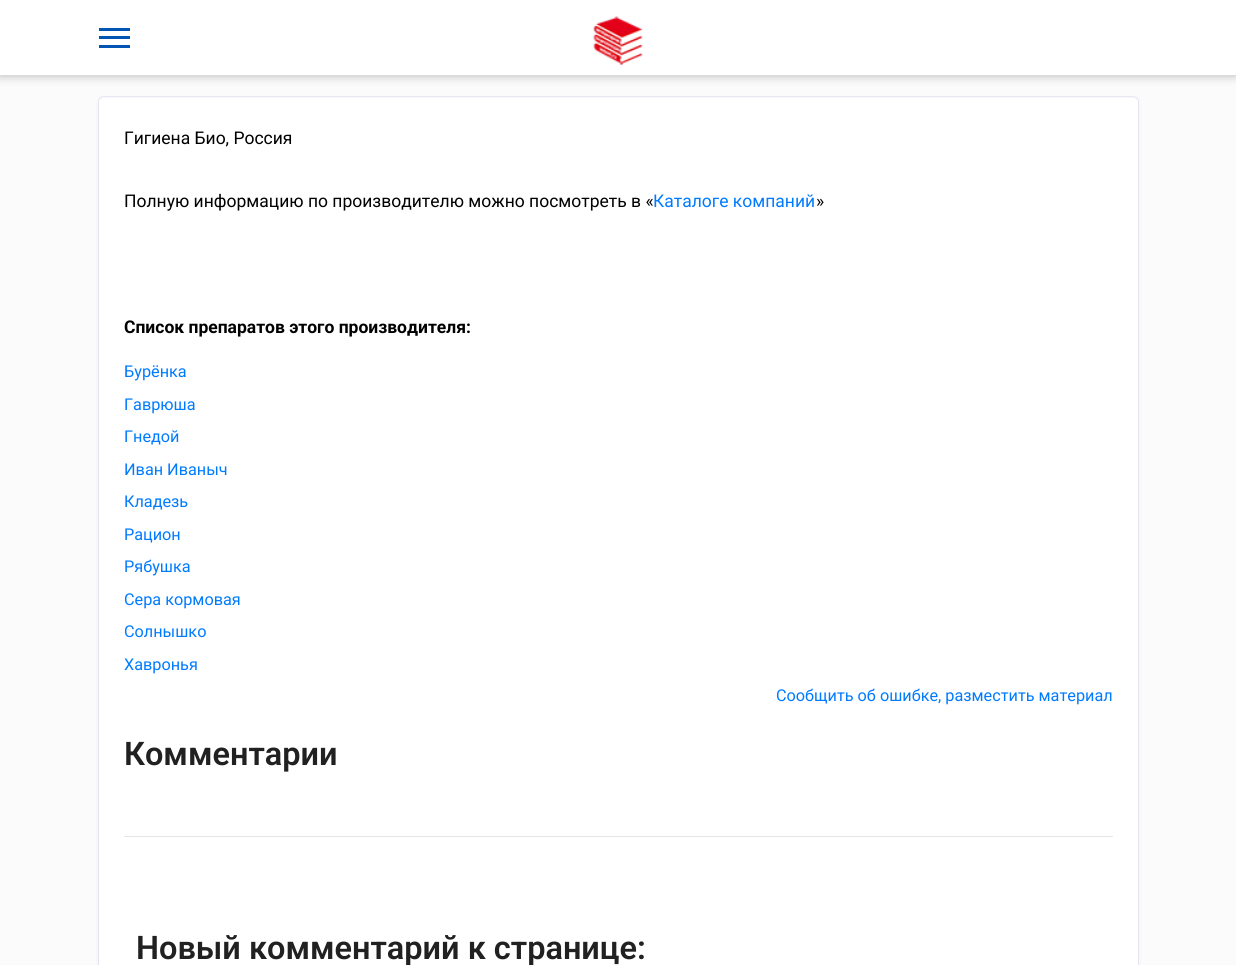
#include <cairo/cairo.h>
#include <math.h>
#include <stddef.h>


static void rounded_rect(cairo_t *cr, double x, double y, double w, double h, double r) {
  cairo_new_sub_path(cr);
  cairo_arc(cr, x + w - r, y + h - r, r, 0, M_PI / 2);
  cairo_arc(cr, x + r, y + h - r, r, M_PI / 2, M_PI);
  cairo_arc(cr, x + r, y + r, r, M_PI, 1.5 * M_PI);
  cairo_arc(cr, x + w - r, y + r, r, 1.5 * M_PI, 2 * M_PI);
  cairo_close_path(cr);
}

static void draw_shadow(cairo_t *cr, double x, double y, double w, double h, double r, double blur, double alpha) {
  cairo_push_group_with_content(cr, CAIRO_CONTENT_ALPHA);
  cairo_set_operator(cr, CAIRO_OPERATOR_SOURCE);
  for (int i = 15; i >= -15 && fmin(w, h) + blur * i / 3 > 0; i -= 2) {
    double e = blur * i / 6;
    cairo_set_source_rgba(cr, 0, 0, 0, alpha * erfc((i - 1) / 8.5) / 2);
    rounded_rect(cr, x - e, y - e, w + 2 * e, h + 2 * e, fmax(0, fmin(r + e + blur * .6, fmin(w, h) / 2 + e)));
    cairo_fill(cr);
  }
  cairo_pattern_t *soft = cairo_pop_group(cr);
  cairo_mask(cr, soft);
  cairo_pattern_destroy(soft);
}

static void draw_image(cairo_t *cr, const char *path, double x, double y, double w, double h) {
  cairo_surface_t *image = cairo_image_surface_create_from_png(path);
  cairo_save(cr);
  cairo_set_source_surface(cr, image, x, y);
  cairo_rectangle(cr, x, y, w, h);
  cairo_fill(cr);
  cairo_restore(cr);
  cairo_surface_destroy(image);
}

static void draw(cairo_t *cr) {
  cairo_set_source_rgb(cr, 251 / 255.0, 251 / 255.0, 252 / 255.0);
  cairo_paint(cr);
  cairo_set_source_rgb(cr, 0, 0, 0);
  draw_shadow(cr, 0, 1, 1236, 75, 0, 5, 0.25);
  cairo_set_source_rgb(cr, 1, 1, 1);
  cairo_rectangle(cr, 0, 0, 1236, 75);
  cairo_fill(cr);
  cairo_set_source_rgb(cr, 2 / 255.0, 85 / 255.0, 179 / 255.0);
  cairo_rectangle(cr, 99, 28, 31, 3);
  cairo_fill(cr);
  cairo_rectangle(cr, 99, 36, 31, 3);
  cairo_fill(cr);
  cairo_rectangle(cr, 99, 45, 31, 3);
  cairo_fill(cr);
  draw_image(cr, "images/1.png", 593, 16, 50, 49);
  cairo_set_source_rgb(cr, 67 / 255.0, 41 / 255.0, 163 / 255.0);
  draw_shadow(cr, 99, 99, 1039, 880, 5, 3, 0.08);
  rounded_rect(cr, 98.5, 96.5, 1040, 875, 5.5);
  cairo_set_source_rgba(cr, 67 / 255.0, 41 / 255.0, 163 / 255.0, 0.08);
  cairo_set_line_width(cr, 1);
  cairo_stroke(cr);
  cairo_set_source_rgb(cr, 1, 1, 1);
  rounded_rect(cr, 99, 98, 1039, 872, 5);
  cairo_fill(cr);
  cairo_set_source_rgb(cr, 230 / 255.0, 230 / 255.0, 230 / 255.0);
  cairo_rectangle(cr, 124, 836, 989, 1);
  cairo_fill(cr);
  cairo_select_font_face(cr, "Roboto", CAIRO_FONT_SLANT_NORMAL, CAIRO_FONT_WEIGHT_NORMAL);
  cairo_set_font_size(cr, 17.5);
  cairo_set_source_rgb(cr, 0, 0, 0);
  cairo_move_to(cr, 124, 144);
  cairo_show_text(cr, "Гигиена Био, Россия");
  cairo_move_to(cr, 124, 207);
  cairo_show_text(cr, "Полную информацию по производителю можно посмотреть в «");
  cairo_set_source_rgb(cr, 0, 123 / 255.0, 1);
  cairo_move_to(cr, 653, 207);
  cairo_show_text(cr, "Каталоге компаний");
  cairo_set_source_rgb(cr, 0, 0, 0);
  cairo_move_to(cr, 816, 207);
  cairo_show_text(cr, "»");
  cairo_select_font_face(cr, "Roboto", CAIRO_FONT_SLANT_NORMAL, CAIRO_FONT_WEIGHT_BOLD);
  cairo_move_to(cr, 124, 333);
  cairo_show_text(cr, "Список препаратов этого производителя:");
  cairo_select_font_face(cr, "Roboto", CAIRO_FONT_SLANT_NORMAL, CAIRO_FONT_WEIGHT_NORMAL);
  cairo_set_font_size(cr, 16.25);
  cairo_set_source_rgb(cr, 0, 123 / 255.0, 1);
  cairo_move_to(cr, 124, 377);
  cairo_show_text(cr, "Бурёнка");
  cairo_move_to(cr, 124, 410);
  cairo_show_text(cr, "Гаврюша");
  cairo_move_to(cr, 124, 442);
  cairo_show_text(cr, "Гнедой");
  cairo_move_to(cr, 124, 475);
  cairo_show_text(cr, "Иван Иваныч");
  cairo_move_to(cr, 124, 507);
  cairo_show_text(cr, "Кладезь");
  cairo_move_to(cr, 124, 540);
  cairo_show_text(cr, "Рацион");
  cairo_move_to(cr, 124, 572);
  cairo_show_text(cr, "Рябушка");
  cairo_move_to(cr, 124, 605);
  cairo_show_text(cr, "Сера кормовая");
  cairo_move_to(cr, 124, 637);
  cairo_show_text(cr, "Солнышко");
  cairo_move_to(cr, 124, 670);
  cairo_show_text(cr, "Хавронья");
  cairo_move_to(cr, 776, 701);
  cairo_show_text(cr, "Сообщить об ошибке, разместить материал");
  cairo_select_font_face(cr, "Roboto SemiBold", CAIRO_FONT_SLANT_NORMAL, CAIRO_FONT_WEIGHT_NORMAL);
  cairo_set_font_size(cr, 32.5);
  cairo_set_source_rgb(cr, 33 / 255.0, 33 / 255.0, 33 / 255.0);
  cairo_move_to(cr, 124, 765);
  cairo_show_text(cr, "Комментарии");
  cairo_move_to(cr, 136, 959);
  cairo_show_text(cr, "Новый комментарий к странице:");
}

int main(void) {
  cairo_surface_t *surface = cairo_image_surface_create(CAIRO_FORMAT_RGB24, 1236, 965);
  cairo_t *cr = cairo_create(surface);
  cairo_font_options_t *options = cairo_font_options_create();
  cairo_font_options_set_hint_metrics(options, CAIRO_HINT_METRICS_OFF);
  cairo_font_options_set_hint_style(options, CAIRO_HINT_STYLE_NONE);
  cairo_set_font_options(cr, options);
  cairo_set_miter_limit(cr, 4);
  draw(cr);
  cairo_surface_write_to_png(surface, "out.png");
  cairo_font_options_destroy(options);
  cairo_destroy(cr);
  cairo_surface_destroy(surface);
  return 0;
}
